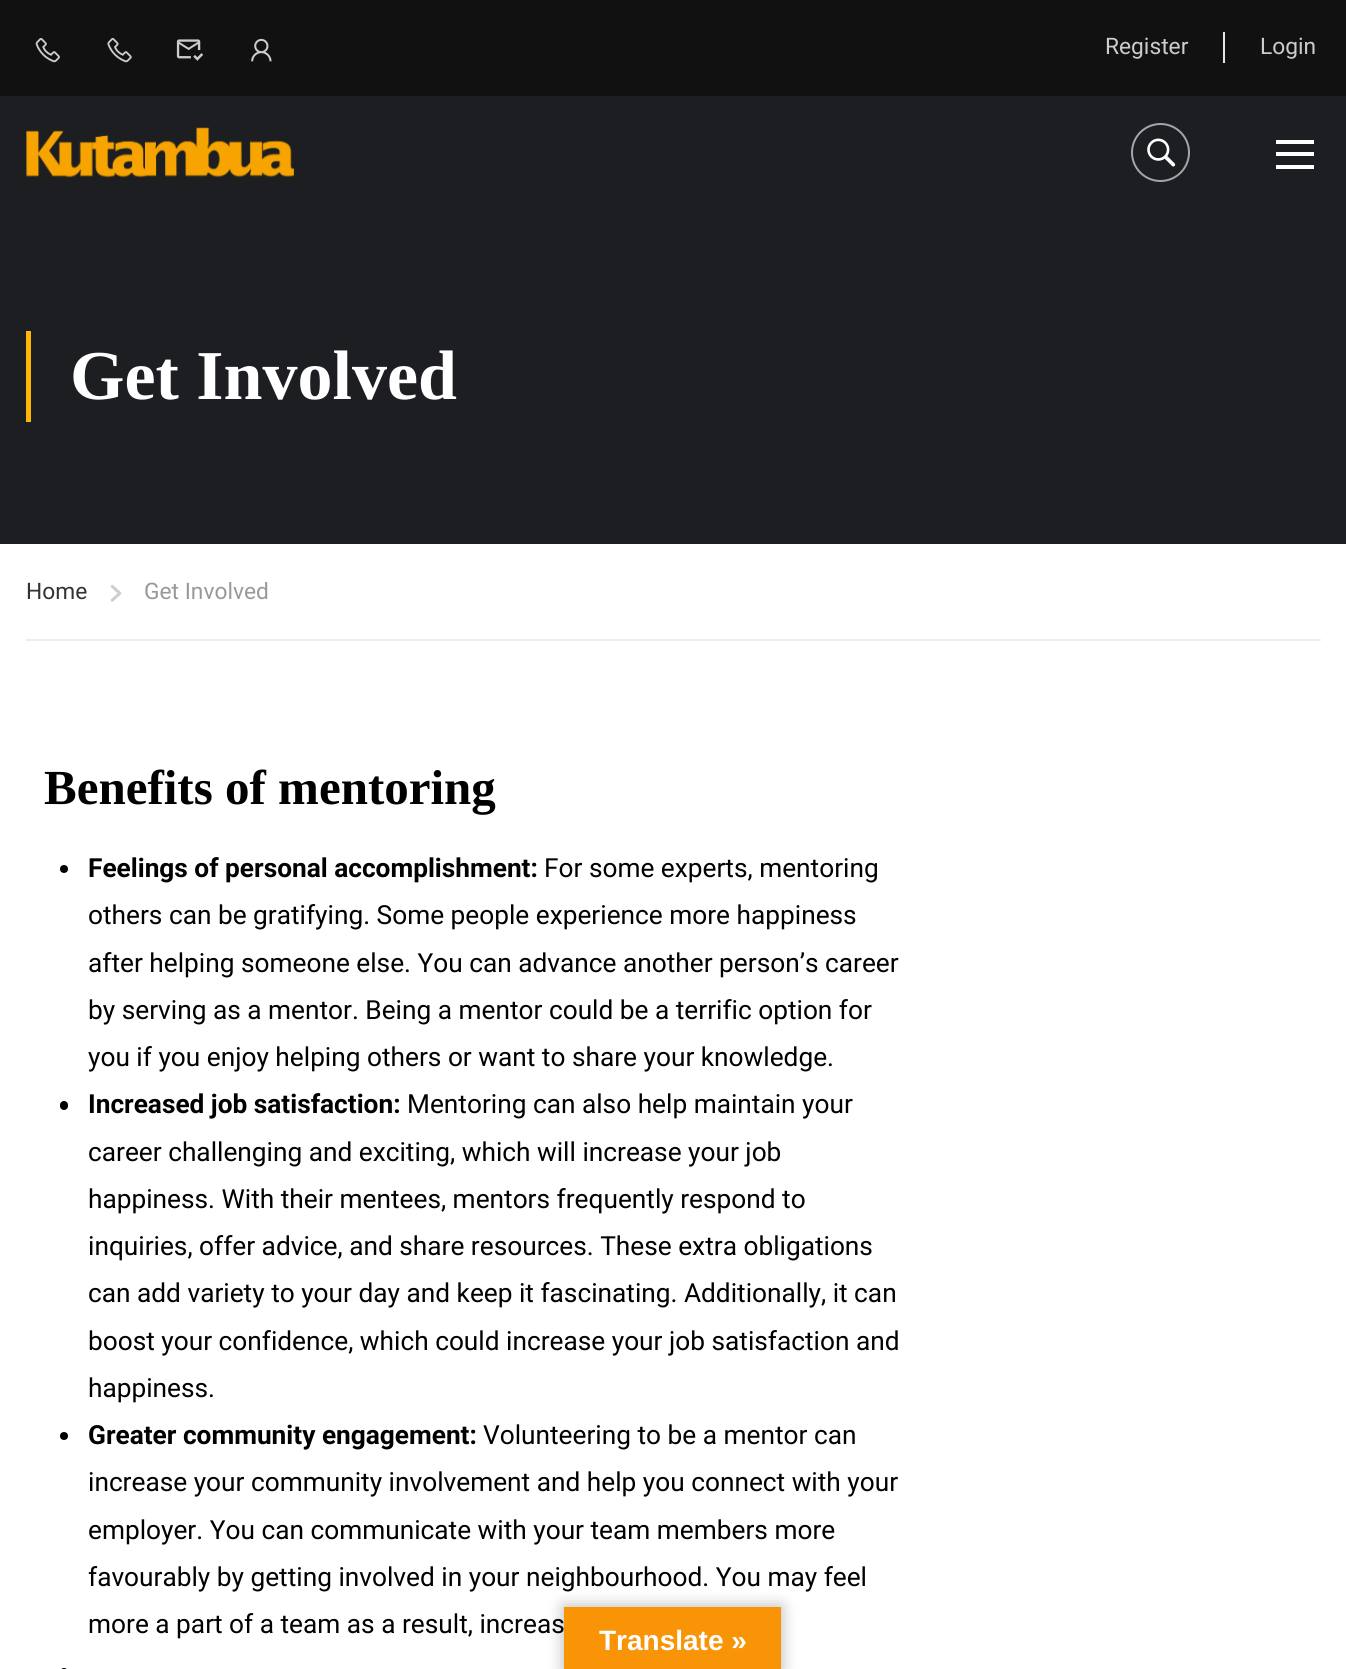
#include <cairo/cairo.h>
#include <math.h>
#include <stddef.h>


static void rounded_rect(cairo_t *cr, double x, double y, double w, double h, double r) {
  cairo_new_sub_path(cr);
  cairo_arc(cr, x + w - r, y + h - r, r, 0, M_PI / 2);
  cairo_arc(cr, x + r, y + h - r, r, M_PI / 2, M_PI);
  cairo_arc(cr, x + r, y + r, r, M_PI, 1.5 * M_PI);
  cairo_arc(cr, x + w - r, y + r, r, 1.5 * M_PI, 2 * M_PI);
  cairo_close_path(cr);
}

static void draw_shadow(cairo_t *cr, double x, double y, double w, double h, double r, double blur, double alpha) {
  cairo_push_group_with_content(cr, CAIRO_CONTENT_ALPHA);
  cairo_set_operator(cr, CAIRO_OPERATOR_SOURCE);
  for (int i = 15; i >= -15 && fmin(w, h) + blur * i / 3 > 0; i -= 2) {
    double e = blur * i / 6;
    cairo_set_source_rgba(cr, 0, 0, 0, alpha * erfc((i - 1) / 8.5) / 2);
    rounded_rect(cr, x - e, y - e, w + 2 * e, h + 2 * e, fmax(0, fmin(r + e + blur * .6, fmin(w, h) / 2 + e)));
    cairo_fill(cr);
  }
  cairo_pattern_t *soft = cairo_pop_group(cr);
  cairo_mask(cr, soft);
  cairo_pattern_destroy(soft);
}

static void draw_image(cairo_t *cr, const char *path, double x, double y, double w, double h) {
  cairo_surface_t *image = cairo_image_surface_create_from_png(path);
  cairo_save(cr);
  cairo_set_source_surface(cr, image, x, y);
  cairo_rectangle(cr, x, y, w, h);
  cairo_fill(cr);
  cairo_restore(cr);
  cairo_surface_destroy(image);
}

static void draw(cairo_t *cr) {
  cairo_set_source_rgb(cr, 1, 1, 1);
  cairo_paint(cr);
  cairo_set_source_rgb(cr, 17 / 255.0, 17 / 255.0, 17 / 255.0);
  cairo_rectangle(cr, 0, 0, 1346, 96);
  cairo_fill(cr);
  draw_image(cr, "images/1.png", 35, 38, 25, 25);
  draw_image(cr, "images/2.png", 107, 38, 25, 25);
  draw_image(cr, "images/3.png", 176, 39, 28, 22);
  draw_image(cr, "images/4.png", 251, 38, 21, 24);
  cairo_set_source_rgb(cr, 231 / 255.0, 231 / 255.0, 231 / 255.0);
  cairo_rectangle(cr, 1223, 32, 2, 31);
  cairo_fill(cr);
  cairo_set_source_rgb(cr, 28 / 255.0, 30 / 255.0, 34 / 255.0);
  cairo_rectangle(cr, 0, 96, 1346, 448);
  cairo_fill(cr);
  draw_image(cr, "images/5.png", 26, 127, 268, 51);
  cairo_arc(cr, 1160.5, 152.5, 28.5, 0, 2 * M_PI);
  cairo_set_source_rgb(cr, 164 / 255.0, 165 / 255.0, 167 / 255.0);
  cairo_stroke(cr);
  draw_image(cr, "images/6.png", 1147, 138, 29, 29);
  cairo_set_source_rgb(cr, 1, 1, 1);
  cairo_rectangle(cr, 1276, 140, 38, 4);
  cairo_fill(cr);
  cairo_rectangle(cr, 1276, 152, 38, 4);
  cairo_fill(cr);
  cairo_rectangle(cr, 1276, 165, 38, 4);
  cairo_fill(cr);
  cairo_set_source_rgb(cr, 1, 182 / 255.0, 6 / 255.0);
  cairo_rectangle(cr, 26, 331, 5, 91);
  cairo_fill(cr);
  cairo_set_source_rgb(cr, 238 / 255.0, 238 / 255.0, 238 / 255.0);
  cairo_rectangle(cr, 26, 639, 1295, 2);
  cairo_fill(cr);
  draw_image(cr, "images/7.png", 110, 585, 12, 17);
  cairo_set_source_rgb(cr, 0, 0, 0);
  cairo_arc(cr, 64, 869, 4, 0, 2 * M_PI);
  cairo_fill(cr);
  rounded_rect(cr, 60, 1101, 8, 9, 4);
  cairo_fill(cr);
  cairo_arc(cr, 64, 1436, 4, 0, 2 * M_PI);
  cairo_fill(cr);
  rounded_rect(cr, 60, 1668, 8, 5, 4);
  cairo_fill(cr);
  cairo_set_source_rgb(cr, 0, 0, 0);
  draw_shadow(cr, 564, 1607, 217, 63, 0, 8, 0.3);
  cairo_set_source_rgb(cr, 248 / 255.0, 148 / 255.0, 6 / 255.0);
  cairo_rectangle(cr, 564, 1607, 217, 62);
  cairo_fill(cr);
  cairo_select_font_face(cr, "Roboto", CAIRO_FONT_SLANT_NORMAL, CAIRO_FONT_WEIGHT_NORMAL);
  cairo_set_font_size(cr, 22.75);
  cairo_set_source_rgb(cr, 204 / 255.0, 204 / 255.0, 204 / 255.0);
  cairo_move_to(cr, 1105, 54);
  cairo_show_text(cr, "Register");
  cairo_move_to(cr, 1260, 54);
  cairo_show_text(cr, "Login");
  cairo_select_font_face(cr, "Liberation Serif", CAIRO_FONT_SLANT_NORMAL, CAIRO_FONT_WEIGHT_BOLD);
  cairo_set_font_size(cr, 70);
  cairo_set_source_rgb(cr, 1, 1, 1);
  cairo_move_to(cr, 70, 399);
  cairo_show_text(cr, "Get Involved");
  cairo_select_font_face(cr, "Roboto", CAIRO_FONT_SLANT_NORMAL, CAIRO_FONT_WEIGHT_NORMAL);
  cairo_set_font_size(cr, 22.75);
  cairo_set_source_rgb(cr, 51 / 255.0, 51 / 255.0, 51 / 255.0);
  cairo_move_to(cr, 26, 599);
  cairo_show_text(cr, "Home");
  cairo_set_source_rgb(cr, 153 / 255.0, 153 / 255.0, 153 / 255.0);
  cairo_move_to(cr, 144, 599);
  cairo_show_text(cr, "Get Involved");
  cairo_select_font_face(cr, "Liberation Serif", CAIRO_FONT_SLANT_NORMAL, CAIRO_FONT_WEIGHT_BOLD);
  cairo_set_font_size(cr, 49);
  cairo_set_source_rgb(cr, 0, 0, 0);
  cairo_move_to(cr, 44, 804);
  cairo_show_text(cr, "Benefits of mentoring");
  cairo_select_font_face(cr, "Roboto", CAIRO_FONT_SLANT_NORMAL, CAIRO_FONT_WEIGHT_BOLD);
  cairo_set_font_size(cr, 26.25);
  cairo_move_to(cr, 88, 877);
  cairo_show_text(cr, "Feelings of personal accomplishment:");
  cairo_select_font_face(cr, "Roboto", CAIRO_FONT_SLANT_NORMAL, CAIRO_FONT_WEIGHT_NORMAL);
  cairo_move_to(cr, 544, 877);
  cairo_show_text(cr, "For some experts, mentoring");
  cairo_move_to(cr, 88, 924);
  cairo_show_text(cr, "others can be gratifying. Some people experience more happiness");
  cairo_move_to(cr, 88, 972);
  cairo_show_text(cr, "after helping someone else. You can advance another person’s career");
  cairo_move_to(cr, 88, 1019);
  cairo_show_text(cr, "by serving as a mentor. Being a mentor could be a terrific option for");
  cairo_move_to(cr, 88, 1066);
  cairo_show_text(cr, "you if you enjoy helping others or want to share your knowledge.");
  cairo_select_font_face(cr, "Roboto", CAIRO_FONT_SLANT_NORMAL, CAIRO_FONT_WEIGHT_BOLD);
  cairo_move_to(cr, 88, 1113);
  cairo_show_text(cr, "Increased job satisfaction:");
  cairo_select_font_face(cr, "Roboto", CAIRO_FONT_SLANT_NORMAL, CAIRO_FONT_WEIGHT_NORMAL);
  cairo_move_to(cr, 407, 1113);
  cairo_show_text(cr, "Mentoring can also help maintain your");
  cairo_move_to(cr, 88, 1161);
  cairo_show_text(cr, "career challenging and exciting, which will increase your job");
  cairo_move_to(cr, 88, 1208);
  cairo_show_text(cr, "happiness. With their mentees, mentors frequently respond to");
  cairo_move_to(cr, 88, 1255);
  cairo_show_text(cr, "inquiries, offer advice, and share resources. These extra obligations");
  cairo_move_to(cr, 88, 1302);
  cairo_show_text(cr, "can add variety to your day and keep it fascinating. Additionally, it can");
  cairo_move_to(cr, 88, 1350);
  cairo_show_text(cr, "boost your confidence, which could increase your job satisfaction and");
  cairo_move_to(cr, 88, 1397);
  cairo_show_text(cr, "happiness.");
  cairo_select_font_face(cr, "Roboto", CAIRO_FONT_SLANT_NORMAL, CAIRO_FONT_WEIGHT_BOLD);
  cairo_move_to(cr, 88, 1444);
  cairo_show_text(cr, "Greater community engagement:");
  cairo_select_font_face(cr, "Roboto", CAIRO_FONT_SLANT_NORMAL, CAIRO_FONT_WEIGHT_NORMAL);
  cairo_move_to(cr, 483, 1444);
  cairo_show_text(cr, "Volunteering to be a mentor can");
  cairo_move_to(cr, 88, 1491);
  cairo_show_text(cr, "increase your community involvement and help you connect with your");
  cairo_move_to(cr, 88, 1539);
  cairo_show_text(cr, "employer. You can communicate with your team members more");
  cairo_move_to(cr, 88, 1586);
  cairo_show_text(cr, "favourably by getting involved in your neighbourhood. You may feel");
  cairo_move_to(cr, 88, 1633);
  cairo_show_text(cr, "more a part of a team as a result, increas");
  cairo_select_font_face(cr, "Liberation Sans", CAIRO_FONT_SLANT_NORMAL, CAIRO_FONT_WEIGHT_BOLD);
  cairo_set_font_size(cr, 28);
  cairo_set_source_rgb(cr, 1, 1, 1);
  cairo_move_to(cr, 599, 1650);
  cairo_show_text(cr, "Translate »");
}

int main(void) {
  cairo_surface_t *surface = cairo_image_surface_create(CAIRO_FORMAT_RGB24, 1346, 1669);
  cairo_t *cr = cairo_create(surface);
  cairo_font_options_t *options = cairo_font_options_create();
  cairo_font_options_set_hint_metrics(options, CAIRO_HINT_METRICS_OFF);
  cairo_font_options_set_hint_style(options, CAIRO_HINT_STYLE_NONE);
  cairo_set_font_options(cr, options);
  cairo_set_miter_limit(cr, 4);
  draw(cr);
  cairo_surface_write_to_png(surface, "out.png");
  cairo_font_options_destroy(options);
  cairo_destroy(cr);
  cairo_surface_destroy(surface);
  return 0;
}
